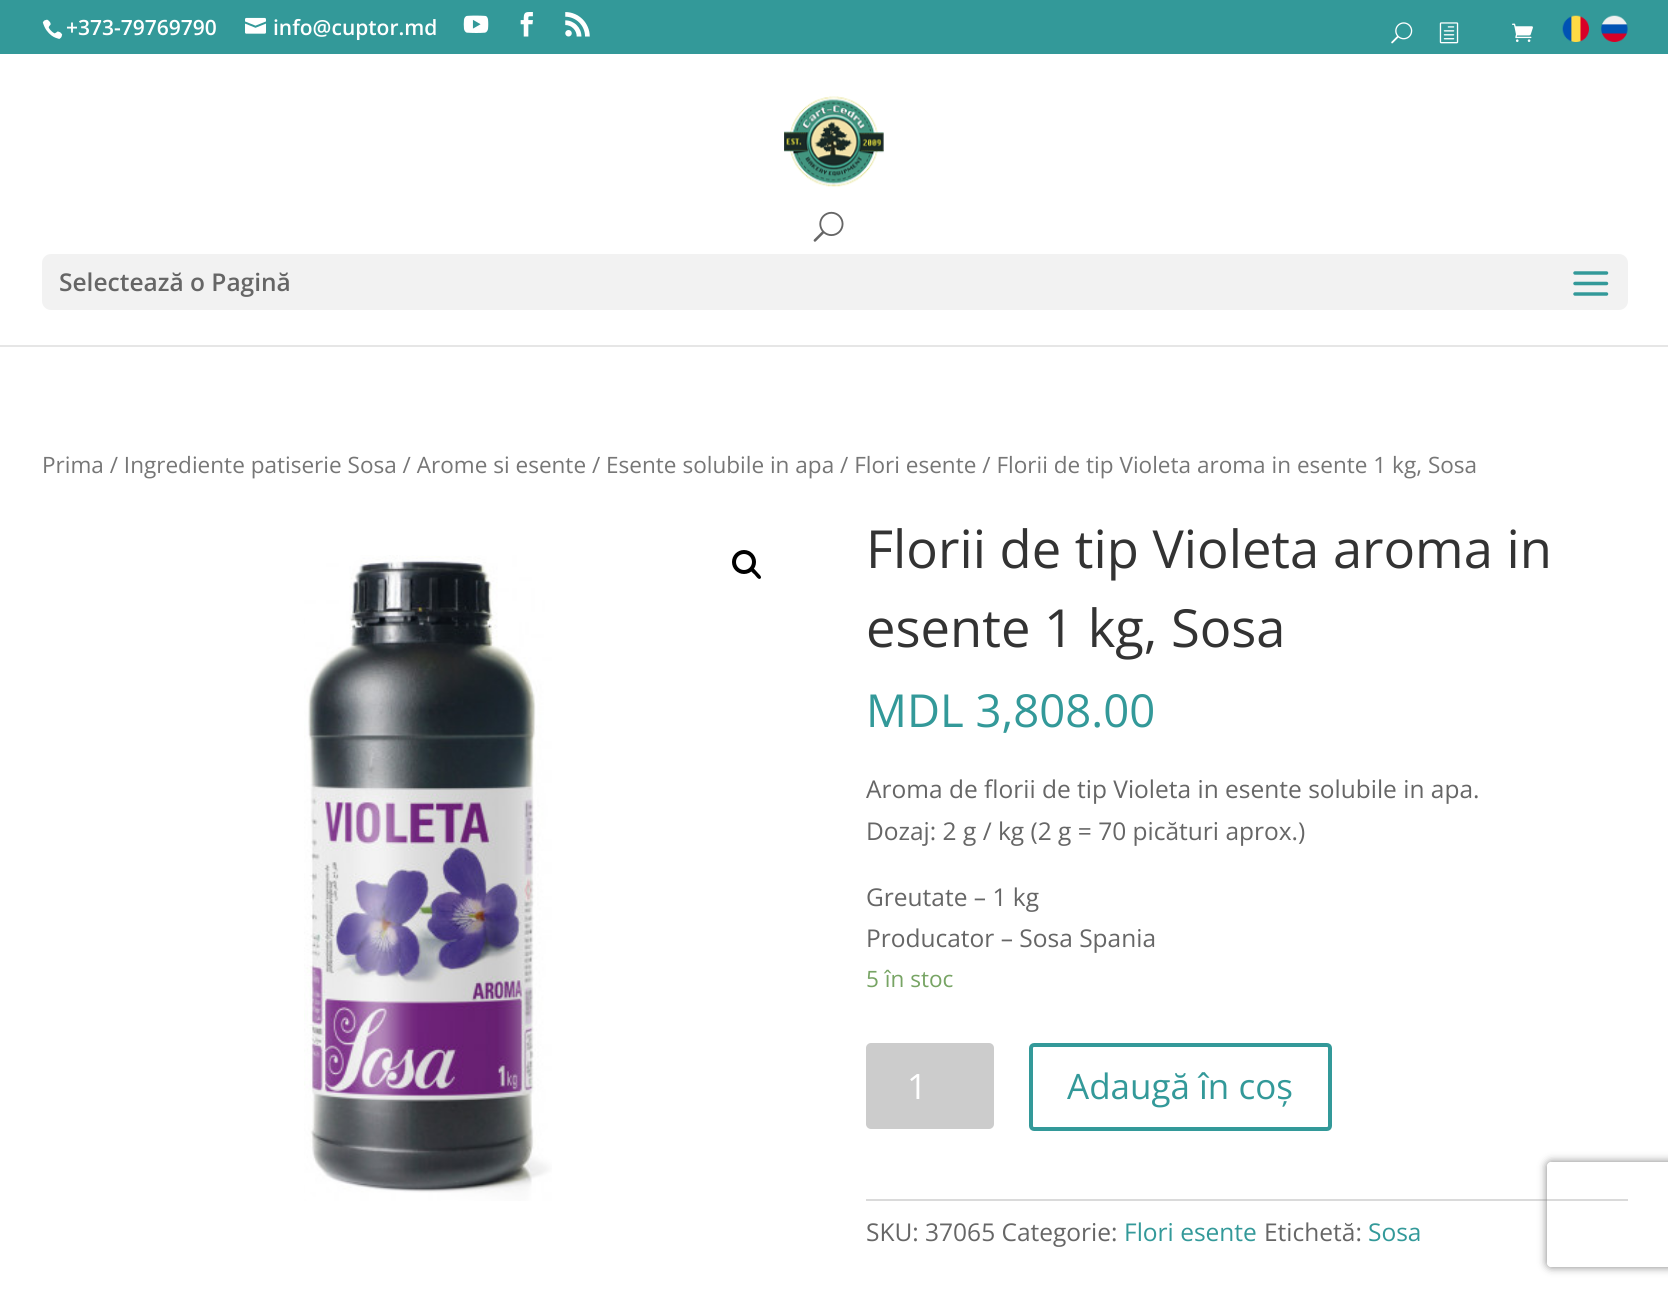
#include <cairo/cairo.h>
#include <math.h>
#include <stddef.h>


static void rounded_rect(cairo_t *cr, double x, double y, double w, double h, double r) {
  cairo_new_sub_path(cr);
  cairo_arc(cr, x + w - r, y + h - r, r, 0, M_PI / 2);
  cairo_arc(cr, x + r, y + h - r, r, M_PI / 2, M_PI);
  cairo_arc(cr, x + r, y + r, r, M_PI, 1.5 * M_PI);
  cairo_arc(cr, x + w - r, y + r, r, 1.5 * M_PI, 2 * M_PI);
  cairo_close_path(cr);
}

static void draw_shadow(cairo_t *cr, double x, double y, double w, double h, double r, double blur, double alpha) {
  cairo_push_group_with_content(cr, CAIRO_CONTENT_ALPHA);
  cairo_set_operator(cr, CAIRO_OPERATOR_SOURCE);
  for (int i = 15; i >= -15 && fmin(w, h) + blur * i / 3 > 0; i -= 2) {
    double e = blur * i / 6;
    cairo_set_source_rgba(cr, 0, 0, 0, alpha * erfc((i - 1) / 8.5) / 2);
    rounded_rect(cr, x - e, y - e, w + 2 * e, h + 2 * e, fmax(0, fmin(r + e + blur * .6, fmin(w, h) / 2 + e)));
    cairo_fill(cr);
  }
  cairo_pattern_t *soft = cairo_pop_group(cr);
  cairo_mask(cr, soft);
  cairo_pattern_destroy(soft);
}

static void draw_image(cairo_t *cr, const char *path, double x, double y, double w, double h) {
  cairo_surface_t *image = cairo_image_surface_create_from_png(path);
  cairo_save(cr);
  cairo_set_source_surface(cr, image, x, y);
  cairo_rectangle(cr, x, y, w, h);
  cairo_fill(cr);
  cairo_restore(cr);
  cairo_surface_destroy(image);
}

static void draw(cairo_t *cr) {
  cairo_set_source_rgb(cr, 1, 1, 1);
  cairo_paint(cr);
  cairo_set_source_rgb(cr, 51 / 255.0, 153 / 255.0, 153 / 255.0);
  cairo_rectangle(cr, 0, 0, 1668, 54);
  cairo_fill(cr);
  draw_image(cr, "images/1.png", 42, 19, 21, 20);
  draw_image(cr, "images/2.png", 245, 17, 21, 17);
  draw_image(cr, "images/3.png", 463, 15, 26, 18);
  draw_image(cr, "images/4.png", 520, 12, 13, 25);
  draw_image(cr, "images/5.png", 565, 12, 25, 25);
  draw_image(cr, "images/6.png", 1391, 22, 22, 22);
  draw_image(cr, "images/7.png", 1439, 22, 20, 22);
  draw_image(cr, "images/8.png", 1512, 23, 21, 19);
  draw_image(cr, "images/9.png", 1562, 15, 27, 27);
  draw_image(cr, "images/10.png", 1601, 15, 27, 27);
  cairo_set_source_rgb(cr, 230 / 255.0, 230 / 255.0, 230 / 255.0);
  cairo_new_path(cr);
  cairo_move_to(cr, 0, 345);
  cairo_line_to(cr, 0, 347);
  cairo_line_to(cr, 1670, 347);
  cairo_line_to(cr, 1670, 56);
  cairo_line_to(cr, 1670, 345);
  cairo_close_path(cr);
  cairo_fill(cr);
  draw_image(cr, "images/11.png", 784, 96, 100, 91);
  draw_image(cr, "images/12.png", 813, 211, 31, 31);
  cairo_set_source_rgb(cr, 242 / 255.0, 242 / 255.0, 242 / 255.0);
  rounded_rect(cr, 42, 254, 1586, 56, 9);
  cairo_fill(cr);
  draw_image(cr, "images/13.png", 1573, 271, 36, 25);
  draw_image(cr, "images/14.png", 304, 555, 248, 646);
  cairo_arc(cr, 744, 562, 10, 0, 2 * M_PI);
  cairo_set_source_rgb(cr, 0, 0, 0);
  cairo_set_line_width(cr, 4);
  cairo_stroke(cr);
  cairo_new_path(cr);
  cairo_move_to(cr, 751, 568.5);
  cairo_curve_to(cr, 753, 566.5, 756, 571, 757, 572);
  cairo_curve_to(cr, 758, 573.5, 762.5, 576.5, 760.5, 578.5);
  cairo_curve_to(cr, 758.5, 580.5, 755.5, 575.5, 754.5, 574.5);
  cairo_curve_to(cr, 753.5, 573.5, 749, 570.5, 751, 568.5);
  cairo_close_path(cr);
  cairo_fill(cr);
  cairo_set_source_rgb(cr, 204 / 255.0, 204 / 255.0, 204 / 255.0);
  rounded_rect(cr, 866, 1043, 128, 86, 5);
  cairo_fill(cr);
  rounded_rect(cr, 1031, 1045, 299, 84, 3);
  cairo_set_source_rgb(cr, 51 / 255.0, 153 / 255.0, 153 / 255.0);
  cairo_stroke(cr);
  cairo_set_source_rgb(cr, 218 / 255.0, 218 / 255.0, 218 / 255.0);
  cairo_rectangle(cr, 866, 1199, 762, 2);
  cairo_fill(cr);
  cairo_save(cr);
  cairo_set_fill_rule(cr, CAIRO_FILL_RULE_EVEN_ODD);
  cairo_new_path(cr);
  cairo_move_to(cr, 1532, 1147);
  cairo_line_to(cr, 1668, 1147);
  cairo_line_to(cr, 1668, 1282);
  cairo_line_to(cr, 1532, 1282);
  cairo_close_path(cr);
  cairo_move_to(cr, 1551, 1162);
  cairo_line_to(cr, 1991, 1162);
  cairo_curve_to(cr, 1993, 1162, 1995, 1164, 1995, 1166);
  cairo_line_to(cr, 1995, 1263);
  cairo_curve_to(cr, 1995, 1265, 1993, 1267, 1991, 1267);
  cairo_line_to(cr, 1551, 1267);
  cairo_curve_to(cr, 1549, 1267, 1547, 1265, 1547, 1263);
  cairo_line_to(cr, 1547, 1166);
  cairo_curve_to(cr, 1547, 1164, 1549, 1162, 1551, 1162);
  cairo_close_path(cr);
  cairo_clip(cr);
  cairo_set_source_rgb(cr, 128 / 255.0, 128 / 255.0, 128 / 255.0);
  draw_shadow(cr, 1547, 1162, 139, 105, 4, 4.5, 1);
  cairo_restore(cr);
  cairo_select_font_face(cr, "Open Sans SemiBold", CAIRO_FONT_SLANT_NORMAL, CAIRO_FONT_WEIGHT_NORMAL);
  cairo_set_font_size(cr, 21);
  cairo_set_source_rgb(cr, 1, 1, 1);
  cairo_move_to(cr, 66, 35);
  cairo_show_text(cr, "+373-79769790");
  cairo_move_to(cr, 273, 35);
  cairo_show_text(cr, "info@cuptor.md");
  cairo_set_font_size(cr, 24.5);
  cairo_set_source_rgb(cr, 102 / 255.0, 102 / 255.0, 102 / 255.0);
  cairo_move_to(cr, 59, 291);
  cairo_show_text(cr, "Selectează o Pagină");
  cairo_select_font_face(cr, "Open Sans", CAIRO_FONT_SLANT_NORMAL, CAIRO_FONT_WEIGHT_NORMAL);
  cairo_set_font_size(cr, 22.55);
  cairo_set_source_rgb(cr, 118 / 255.0, 118 / 255.0, 118 / 255.0);
  cairo_move_to(cr, 42, 473);
  cairo_show_text(cr, "Prima / Ingrediente patiserie Sosa / Arome si esente / Esente solubile in apa / Flori esente / Florii de tip Violeta aroma in esente 1 kg, Sosa");
  cairo_set_font_size(cr, 52.5);
  cairo_set_source_rgb(cr, 51 / 255.0, 51 / 255.0, 51 / 255.0);
  cairo_move_to(cr, 866, 568);
  cairo_show_text(cr, "Florii de tip Violeta aroma in");
  cairo_move_to(cr, 866, 647);
  cairo_show_text(cr, "esente 1 kg, Sosa");
  cairo_set_font_size(cr, 45.5);
  cairo_set_source_rgb(cr, 51 / 255.0, 153 / 255.0, 153 / 255.0);
  cairo_move_to(cr, 866, 727);
  cairo_show_text(cr, "MDL 3,808.00");
  cairo_set_font_size(cr, 24.5);
  cairo_set_source_rgb(cr, 102 / 255.0, 102 / 255.0, 102 / 255.0);
  cairo_move_to(cr, 866, 798);
  cairo_show_text(cr, "Aroma de florii de tip Violeta in esente solubile in apa.");
  cairo_move_to(cr, 866, 840);
  cairo_show_text(cr, "Dozaj: 2 g / kg (2 g = 70 picături aprox.)");
  cairo_move_to(cr, 866, 906);
  cairo_show_text(cr, "Greutate – 1 kg");
  cairo_move_to(cr, 866, 947);
  cairo_show_text(cr, "Producator – Sosa Spania");
  cairo_set_font_size(cr, 22.55);
  cairo_set_source_rgb(cr, 119 / 255.0, 164 / 255.0, 100 / 255.0);
  cairo_move_to(cr, 866, 987);
  cairo_show_text(cr, "5 în stoc");
  cairo_set_font_size(cr, 35);
  cairo_set_source_rgb(cr, 1, 1, 1);
  cairo_move_to(cr, 907, 1099);
  cairo_show_text(cr, "1");
  cairo_set_source_rgb(cr, 51 / 255.0, 153 / 255.0, 153 / 255.0);
  cairo_move_to(cr, 1067, 1099);
  cairo_show_text(cr, "Adaugă în coș");
  cairo_set_font_size(cr, 24.5);
  cairo_set_source_rgb(cr, 102 / 255.0, 102 / 255.0, 102 / 255.0);
  cairo_move_to(cr, 866, 1241);
  cairo_show_text(cr, "SKU: 37065 Categorie:");
  cairo_set_source_rgb(cr, 51 / 255.0, 153 / 255.0, 153 / 255.0);
  cairo_move_to(cr, 1124, 1241);
  cairo_show_text(cr, "Flori esente");
  cairo_set_source_rgb(cr, 102 / 255.0, 102 / 255.0, 102 / 255.0);
  cairo_move_to(cr, 1264, 1241);
  cairo_show_text(cr, "Etichetă:");
  cairo_set_source_rgb(cr, 51 / 255.0, 153 / 255.0, 153 / 255.0);
  cairo_move_to(cr, 1368, 1241);
  cairo_show_text(cr, "Sosa");
}

int main(void) {
  cairo_surface_t *surface = cairo_image_surface_create(CAIRO_FORMAT_RGB24, 1668, 1291);
  cairo_t *cr = cairo_create(surface);
  cairo_font_options_t *options = cairo_font_options_create();
  cairo_font_options_set_hint_metrics(options, CAIRO_HINT_METRICS_OFF);
  cairo_font_options_set_hint_style(options, CAIRO_HINT_STYLE_NONE);
  cairo_set_font_options(cr, options);
  cairo_set_miter_limit(cr, 4);
  draw(cr);
  cairo_surface_write_to_png(surface, "out.png");
  cairo_font_options_destroy(options);
  cairo_destroy(cr);
  cairo_surface_destroy(surface);
  return 0;
}
